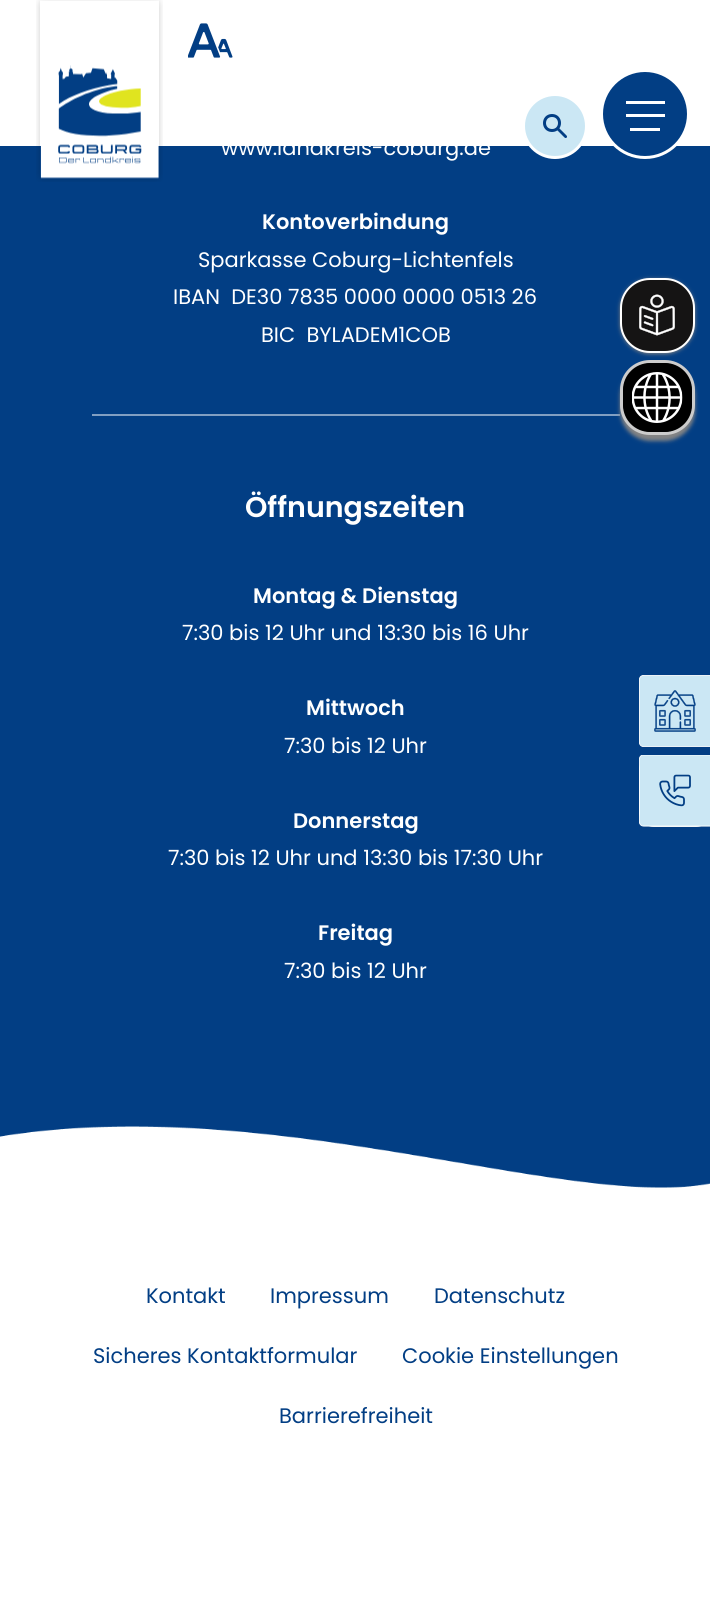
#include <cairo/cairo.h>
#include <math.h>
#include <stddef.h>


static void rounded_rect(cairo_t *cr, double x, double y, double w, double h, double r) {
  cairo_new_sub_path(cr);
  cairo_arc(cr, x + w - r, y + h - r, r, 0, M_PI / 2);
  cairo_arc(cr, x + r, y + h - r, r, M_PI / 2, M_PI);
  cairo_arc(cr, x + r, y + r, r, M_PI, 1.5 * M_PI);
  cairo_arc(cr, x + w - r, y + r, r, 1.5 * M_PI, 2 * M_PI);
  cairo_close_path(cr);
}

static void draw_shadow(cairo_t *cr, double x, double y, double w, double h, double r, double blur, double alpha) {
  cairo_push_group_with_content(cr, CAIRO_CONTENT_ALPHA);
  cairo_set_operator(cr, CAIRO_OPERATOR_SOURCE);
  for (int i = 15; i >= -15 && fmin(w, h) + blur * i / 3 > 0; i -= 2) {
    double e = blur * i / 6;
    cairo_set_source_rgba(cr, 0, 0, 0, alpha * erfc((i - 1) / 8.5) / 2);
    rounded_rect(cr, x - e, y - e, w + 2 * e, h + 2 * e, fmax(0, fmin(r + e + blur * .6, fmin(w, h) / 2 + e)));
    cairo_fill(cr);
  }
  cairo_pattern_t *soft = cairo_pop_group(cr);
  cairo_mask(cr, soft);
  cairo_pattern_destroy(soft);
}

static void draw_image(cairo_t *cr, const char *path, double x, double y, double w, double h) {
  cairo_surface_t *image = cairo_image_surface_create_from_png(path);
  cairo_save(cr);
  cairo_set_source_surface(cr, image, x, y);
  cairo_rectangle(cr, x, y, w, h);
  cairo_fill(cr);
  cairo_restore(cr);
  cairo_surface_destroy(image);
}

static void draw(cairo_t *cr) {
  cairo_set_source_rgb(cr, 1, 1, 1);
  cairo_paint(cr);
  cairo_set_source_rgb(cr, 2 / 255.0, 62 / 255.0, 132 / 255.0);
  cairo_rectangle(cr, 0, 146, 710, 979);
  cairo_fill(cr);
  draw_image(cr, "images/1.png", 36, 0, 127, 182);
  draw_image(cr, "images/2.png", 188, 23, 45, 35);
  cairo_set_source_rgb(cr, 203 / 255.0, 231 / 255.0, 244 / 255.0);
  cairo_arc(cr, 555, 126, 31.5, 0, 2 * M_PI);
  cairo_fill_preserve(cr);
  cairo_set_source_rgb(cr, 1, 1, 1);
  cairo_set_line_width(cr, 3);
  cairo_stroke(cr);
  cairo_new_path(cr);
  cairo_move_to(cr, 552, 130.5);
  cairo_curve_to(cr, 562, 130.5, 562, 115.5, 552, 115.5);
  cairo_curve_to(cr, 542, 115.5, 542, 130.5, 552, 130.5);
  cairo_close_path(cr);
  cairo_set_source_rgb(cr, 2 / 255.0, 62 / 255.0, 132 / 255.0);
  cairo_set_line_cap(cr, CAIRO_LINE_CAP_ROUND);
  cairo_set_line_join(cr, CAIRO_LINE_JOIN_ROUND);
  cairo_stroke(cr);
  cairo_new_path(cr);
  cairo_move_to(cr, 564.5, 137.5);
  cairo_curve_to(cr, 566, 139, 568, 137, 566.5, 135.5);
  cairo_close_path(cr);
  cairo_move_to(cr, 559, 128);
  cairo_curve_to(cr, 557.5, 126.5, 555.5, 128.5, 557, 130);
  cairo_close_path(cr);
  cairo_move_to(cr, 566.5, 135.5);
  cairo_line_to(cr, 559, 128);
  cairo_line_to(cr, 557, 130);
  cairo_line_to(cr, 564.5, 137.5);
  cairo_close_path(cr);
  cairo_fill(cr);
  cairo_arc(cr, 645, 114, 43.5, 0, 2 * M_PI);
  cairo_fill_preserve(cr);
  cairo_set_source_rgb(cr, 1, 1, 1);
  cairo_set_line_cap(cr, CAIRO_LINE_CAP_BUTT);
  cairo_set_line_join(cr, CAIRO_LINE_JOIN_MITER);
  cairo_stroke(cr);
  cairo_rectangle(cr, 626, 101, 39, 3);
  cairo_fill(cr);
  cairo_rectangle(cr, 626, 114, 39, 3);
  cairo_fill(cr);
  cairo_rectangle(cr, 630, 128, 30, 3);
  cairo_fill(cr);
  cairo_set_source_rgb(cr, 129 / 255.0, 159 / 255.0, 194 / 255.0);
  cairo_rectangle(cr, 92, 414, 528, 2);
  cairo_fill(cr);
  draw_image(cr, "images/3.png", 0, 1125, 710, 63);
  draw_image(cr, "images/4.png", 639, 675, 71, 72);
  cairo_set_source_rgb(cr, 239 / 255.0, 239 / 255.0, 239 / 255.0);
  rounded_rect(cr, 639, 755, 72, 72, 15);
  cairo_fill(cr);
  draw_image(cr, "images/5.png", 639, 755, 71, 72);
  cairo_set_source_rgb(cr, 132 / 255.0, 132 / 255.0, 132 / 255.0);
  draw_shadow(cr, 620, 279, 75, 75, 30, 2, 1);
  cairo_set_source_rgb(cr, 21 / 255.0, 20 / 255.0, 20 / 255.0);
  rounded_rect(cr, 621, 279, 73, 73, 29);
  cairo_fill_preserve(cr);
  cairo_set_source_rgb(cr, 1, 1, 1);
  cairo_set_line_width(cr, 2);
  cairo_stroke(cr);
  draw_image(cr, "images/6.png", 639, 294, 36, 42);
  cairo_set_source_rgb(cr, 132 / 255.0, 132 / 255.0, 132 / 255.0);
  draw_shadow(cr, 620, 366, 75, 75, 30, 2, 1);
  cairo_set_source_rgb(cr, 0, 0, 0);
  rounded_rect(cr, 621.5, 361.5, 72, 72, 28.5);
  cairo_fill_preserve(cr);
  cairo_set_source_rgb(cr, 204 / 255.0, 204 / 255.0, 204 / 255.0);
  cairo_set_line_width(cr, 3);
  cairo_stroke(cr);
  cairo_set_source_rgb(cr, 0, 0, 0);
  rounded_rect(cr, 623, 363, 69, 69, 30);
  cairo_fill(cr);
  draw_image(cr, "images/7.png", 632, 372, 51, 51);
  cairo_select_font_face(cr, "Poppins", CAIRO_FONT_SLANT_NORMAL, CAIRO_FONT_WEIGHT_NORMAL);
  cairo_set_font_size(cr, 21);
  cairo_set_source_rgb(cr, 1, 1, 1);
  cairo_move_to(cr, 221, 155);
  cairo_show_text(cr, "www.landkreis-coburg.de");
  cairo_select_font_face(cr, "Poppins SemiBold", CAIRO_FONT_SLANT_NORMAL, CAIRO_FONT_WEIGHT_NORMAL);
  cairo_move_to(cr, 262, 229);
  cairo_show_text(cr, "Kontoverbindung");
  cairo_select_font_face(cr, "Poppins", CAIRO_FONT_SLANT_NORMAL, CAIRO_FONT_WEIGHT_NORMAL);
  cairo_move_to(cr, 198, 267);
  cairo_show_text(cr, "Sparkasse Coburg-Lichtenfels");
  cairo_move_to(cr, 173, 304);
  cairo_show_text(cr, "IBAN  DE30 7835 0000 0000 0513 26");
  cairo_move_to(cr, 261, 342);
  cairo_show_text(cr, "BIC  BYLADEM1COB");
  cairo_select_font_face(cr, "Poppins SemiBold", CAIRO_FONT_SLANT_NORMAL, CAIRO_FONT_WEIGHT_NORMAL);
  cairo_set_font_size(cr, 28.5);
  cairo_move_to(cr, 245, 517);
  cairo_show_text(cr, "Öffnungszeiten");
  cairo_set_font_size(cr, 21);
  cairo_move_to(cr, 253, 603);
  cairo_show_text(cr, "Montag & Dienstag");
  cairo_select_font_face(cr, "Poppins", CAIRO_FONT_SLANT_NORMAL, CAIRO_FONT_WEIGHT_NORMAL);
  cairo_move_to(cr, 182, 640);
  cairo_show_text(cr, "7:30 bis 12 Uhr und 13:30 bis 16 Uhr");
  cairo_select_font_face(cr, "Poppins SemiBold", CAIRO_FONT_SLANT_NORMAL, CAIRO_FONT_WEIGHT_NORMAL);
  cairo_move_to(cr, 306, 715);
  cairo_show_text(cr, "Mittwoch");
  cairo_select_font_face(cr, "Poppins", CAIRO_FONT_SLANT_NORMAL, CAIRO_FONT_WEIGHT_NORMAL);
  cairo_move_to(cr, 284, 753);
  cairo_show_text(cr, "7:30 bis 12 Uhr");
  cairo_select_font_face(cr, "Poppins SemiBold", CAIRO_FONT_SLANT_NORMAL, CAIRO_FONT_WEIGHT_NORMAL);
  cairo_move_to(cr, 293, 828);
  cairo_show_text(cr, "Donnerstag");
  cairo_select_font_face(cr, "Poppins", CAIRO_FONT_SLANT_NORMAL, CAIRO_FONT_WEIGHT_NORMAL);
  cairo_move_to(cr, 168, 865);
  cairo_show_text(cr, "7:30 bis 12 Uhr und 13:30 bis 17:30 Uhr");
  cairo_select_font_face(cr, "Poppins SemiBold", CAIRO_FONT_SLANT_NORMAL, CAIRO_FONT_WEIGHT_NORMAL);
  cairo_move_to(cr, 318, 940);
  cairo_show_text(cr, "Freitag");
  cairo_select_font_face(cr, "Poppins", CAIRO_FONT_SLANT_NORMAL, CAIRO_FONT_WEIGHT_NORMAL);
  cairo_move_to(cr, 284, 978);
  cairo_show_text(cr, "7:30 bis 12 Uhr");
  cairo_set_source_rgb(cr, 2 / 255.0, 62 / 255.0, 132 / 255.0);
  cairo_move_to(cr, 146, 1303);
  cairo_show_text(cr, "Kontakt");
  cairo_move_to(cr, 270, 1303);
  cairo_show_text(cr, "Impressum");
  cairo_move_to(cr, 434, 1303);
  cairo_show_text(cr, "Datenschutz");
  cairo_move_to(cr, 93, 1363);
  cairo_show_text(cr, "Sicheres Kontaktformular");
  cairo_move_to(cr, 402, 1363);
  cairo_show_text(cr, "Cookie Einstellungen");
  cairo_move_to(cr, 279, 1423);
  cairo_show_text(cr, "Barrierefreiheit");
}

int main(void) {
  cairo_surface_t *surface = cairo_image_surface_create(CAIRO_FORMAT_RGB24, 710, 1608);
  cairo_t *cr = cairo_create(surface);
  cairo_font_options_t *options = cairo_font_options_create();
  cairo_font_options_set_hint_metrics(options, CAIRO_HINT_METRICS_OFF);
  cairo_font_options_set_hint_style(options, CAIRO_HINT_STYLE_NONE);
  cairo_set_font_options(cr, options);
  cairo_set_miter_limit(cr, 4);
  draw(cr);
  cairo_surface_write_to_png(surface, "out.png");
  cairo_font_options_destroy(options);
  cairo_destroy(cr);
  cairo_surface_destroy(surface);
  return 0;
}
